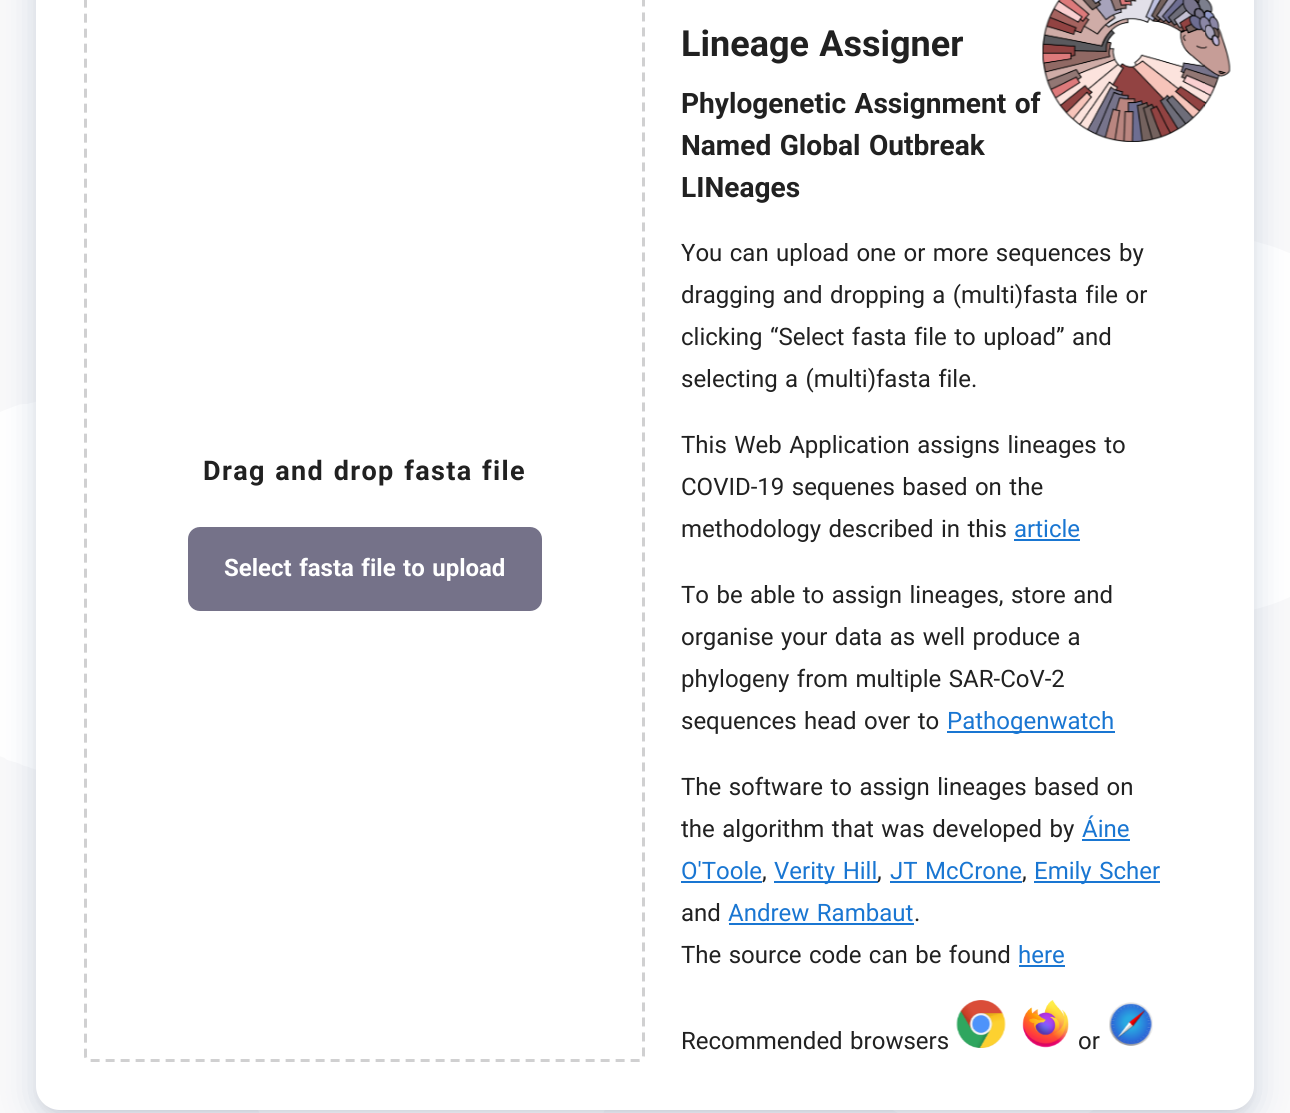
#include <cairo/cairo.h>
#include <math.h>
#include <stddef.h>


static void draw_spaced(cairo_t *cr, double x, double y, const char *s, double letter, double word) {
  cairo_move_to(cr, x, y);
  while (*s) {
    char ch[5] = {0};
    int n = 0;
    do ch[n++] = *s++; while ((*s & 0xC0) == 0x80);
    cairo_show_text(cr, ch);
    cairo_rel_move_to(cr, letter + word * (*ch == ' '), 0);
  }
}

static void rounded_rect(cairo_t *cr, double x, double y, double w, double h, double r) {
  cairo_new_sub_path(cr);
  cairo_arc(cr, x + w - r, y + h - r, r, 0, M_PI / 2);
  cairo_arc(cr, x + r, y + h - r, r, M_PI / 2, M_PI);
  cairo_arc(cr, x + r, y + r, r, M_PI, 1.5 * M_PI);
  cairo_arc(cr, x + w - r, y + r, r, 1.5 * M_PI, 2 * M_PI);
  cairo_close_path(cr);
}

static void draw_shadow(cairo_t *cr, double x, double y, double w, double h, double r, double blur, double alpha) {
  cairo_push_group_with_content(cr, CAIRO_CONTENT_ALPHA);
  cairo_set_operator(cr, CAIRO_OPERATOR_SOURCE);
  for (int i = 15; i >= -15 && fmin(w, h) + blur * i / 3 > 0; i -= 2) {
    double e = blur * i / 6;
    cairo_set_source_rgba(cr, 0, 0, 0, alpha * erfc((i - 1) / 8.5) / 2);
    rounded_rect(cr, x - e, y - e, w + 2 * e, h + 2 * e, fmax(0, fmin(r + e + blur * .6, fmin(w, h) / 2 + e)));
    cairo_fill(cr);
  }
  cairo_pattern_t *soft = cairo_pop_group(cr);
  cairo_mask(cr, soft);
  cairo_pattern_destroy(soft);
}

static void draw_image(cairo_t *cr, const char *path, double x, double y, double w, double h) {
  cairo_surface_t *image = cairo_image_surface_create_from_png(path);
  cairo_save(cr);
  cairo_set_source_surface(cr, image, x, y);
  cairo_rectangle(cr, x, y, w, h);
  cairo_fill(cr);
  cairo_restore(cr);
  cairo_surface_destroy(image);
}

static void draw(cairo_t *cr) {
  cairo_set_source_rgb(cr, 249 / 255.0, 249 / 255.0, 250 / 255.0);
  cairo_paint(cr);
  draw_image(cr, "images/1.png", 0, 241, 1290, 872);
  cairo_set_source_rgb(cr, 14 / 255.0, 13 / 255.0, 26 / 255.0);
  draw_shadow(cr, 42, -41, 1206, 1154, 18, 7.5, 0.12);
  cairo_set_source_rgb(cr, 7 / 255.0, 48 / 255.0, 114 / 255.0);
  draw_shadow(cr, 30, -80, 1230, 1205, 30, 16.5, 0.12);
  cairo_set_source_rgb(cr, 1, 1, 1);
  rounded_rect(cr, 36, -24, 1218, 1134, 24);
  cairo_fill(cr);
  cairo_new_path(cr);
  cairo_move_to(cr, 90, -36);
  cairo_line_to(cr, 639, -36);
  cairo_curve_to(cr, 641.5, -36, 643.5, -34, 643.5, -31.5);
  cairo_line_to(cr, 643.5, 1056);
  cairo_curve_to(cr, 643.5, 1058.5, 641.5, 1060.5, 639, 1060.5);
  cairo_line_to(cr, 90, 1060.5);
  cairo_curve_to(cr, 87.5, 1060.5, 85.5, 1058.5, 85.5, 1056);
  cairo_line_to(cr, 85.5, -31.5);
  cairo_curve_to(cr, 85.5, -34, 87.5, -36, 90, -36);
  cairo_close_path(cr);
  cairo_set_source_rgb(cr, 208 / 255.0, 208 / 255.0, 209 / 255.0);
  cairo_set_line_width(cr, 3);
  cairo_set_dash(cr, (double[]){9, 6}, 2, 0);
  cairo_stroke(cr);
  cairo_set_source_rgb(cr, 117 / 255.0, 114 / 255.0, 137 / 255.0);
  rounded_rect(cr, 188, 527, 354, 84, 12);
  cairo_fill(cr);
  draw_image(cr, "images/2.png", 1042, 0, 189, 142);
  cairo_set_source_rgb(cr, 25 / 255.0, 118 / 255.0, 210 / 255.0);
  cairo_rectangle(cr, 1014, 539, 66, 2);
  cairo_fill(cr);
  cairo_rectangle(cr, 947, 731, 168, 2);
  cairo_fill(cr);
  cairo_rectangle(cr, 1082, 839, 48, 2);
  cairo_fill(cr);
  cairo_rectangle(cr, 681, 881, 81, 2);
  cairo_fill(cr);
  cairo_rectangle(cr, 774, 881, 104, 2);
  cairo_fill(cr);
  cairo_rectangle(cr, 890, 881, 132, 2);
  cairo_fill(cr);
  cairo_rectangle(cr, 1034, 881, 126, 2);
  cairo_fill(cr);
  cairo_rectangle(cr, 729, 923, 185, 2);
  cairo_fill(cr);
  cairo_rectangle(cr, 1019, 965, 46, 2);
  cairo_fill(cr);
  draw_image(cr, "images/3.png", 956, 1000, 50, 48);
  draw_image(cr, "images/4.png", 1022, 1000, 47, 48);
  draw_image(cr, "images/5.png", 1109, 1002, 44, 44);
  cairo_select_font_face(cr, "Roboto", CAIRO_FONT_SLANT_NORMAL, CAIRO_FONT_WEIGHT_BOLD);
  cairo_set_font_size(cr, 27);
  cairo_set_source_rgb(cr, 33 / 255.0, 33 / 255.0, 33 / 255.0);
  draw_spaced(cr, 203, 480, "Drag and drop fasta file", 1.35, 1.5);
  cairo_set_font_size(cr, 24);
  cairo_set_source_rgb(cr, 1, 1, 1);
  draw_spaced(cr, 224, 576, "Select fasta file to upload", 0, 1.5);
  cairo_set_font_size(cr, 36);
  cairo_set_source_rgb(cr, 33 / 255.0, 33 / 255.0, 33 / 255.0);
  draw_spaced(cr, 681, 56, "Lineage Assigner", 0, 1.5);
  cairo_set_font_size(cr, 28.1);
  draw_spaced(cr, 681, 113, "Phylogenetic Assignment of", 0, 1.5);
  draw_spaced(cr, 681, 155, "Named Global Outbreak", 0, 1.5);
  cairo_move_to(cr, 681, 197);
  cairo_show_text(cr, "LINeages");
  cairo_select_font_face(cr, "Roboto", CAIRO_FONT_SLANT_NORMAL, CAIRO_FONT_WEIGHT_NORMAL);
  cairo_set_font_size(cr, 24);
  draw_spaced(cr, 681, 261, "You can upload one or more sequences by", 0, 1.5);
  draw_spaced(cr, 681, 303, "dragging and dropping a (multi)fasta file or", 0, 1.5);
  draw_spaced(cr, 681, 345, "clicking “Select fasta file to upload” and", 0, 1.5);
  draw_spaced(cr, 681, 387, "selecting a (multi)fasta file.", 0, 1.5);
  draw_spaced(cr, 681, 453, "This Web Application assigns lineages to", 0, 1.5);
  draw_spaced(cr, 681, 495, "COVID-19 sequenes based on the", 0, 1.5);
  draw_spaced(cr, 681, 537, "methodology described in this", 0, 1.5);
  cairo_set_source_rgb(cr, 25 / 255.0, 118 / 255.0, 210 / 255.0);
  cairo_move_to(cr, 1014, 537);
  cairo_show_text(cr, "article");
  cairo_set_source_rgb(cr, 33 / 255.0, 33 / 255.0, 33 / 255.0);
  draw_spaced(cr, 681, 603, "To be able to assign lineages, store and", 0, 1.5);
  draw_spaced(cr, 681, 645, "organise your data as well produce a", 0, 1.5);
  draw_spaced(cr, 681, 687, "phylogeny from multiple SAR-CoV-2", 0, 1.5);
  draw_spaced(cr, 681, 729, "sequences head over to", 0, 1.5);
  cairo_set_source_rgb(cr, 25 / 255.0, 118 / 255.0, 210 / 255.0);
  cairo_move_to(cr, 947, 729);
  cairo_show_text(cr, "Pathogenwatch");
  cairo_set_source_rgb(cr, 33 / 255.0, 33 / 255.0, 33 / 255.0);
  draw_spaced(cr, 681, 795, "The software to assign lineages based on", 0, 1.5);
  draw_spaced(cr, 681, 837, "the algorithm that was developed by", 0, 1.5);
  cairo_set_source_rgb(cr, 25 / 255.0, 118 / 255.0, 210 / 255.0);
  cairo_move_to(cr, 1082, 837);
  cairo_show_text(cr, "Áine");
  cairo_move_to(cr, 681, 879);
  cairo_show_text(cr, "O'Toole");
  cairo_set_source_rgb(cr, 33 / 255.0, 33 / 255.0, 33 / 255.0);
  cairo_move_to(cr, 762, 879);
  cairo_show_text(cr, ",");
  cairo_set_source_rgb(cr, 25 / 255.0, 118 / 255.0, 210 / 255.0);
  draw_spaced(cr, 774, 879, "Verity Hill", 0, 1.5);
  cairo_set_source_rgb(cr, 33 / 255.0, 33 / 255.0, 33 / 255.0);
  cairo_move_to(cr, 877, 879);
  cairo_show_text(cr, ",");
  cairo_set_source_rgb(cr, 25 / 255.0, 118 / 255.0, 210 / 255.0);
  draw_spaced(cr, 890, 879, "JT McCrone", 0, 1.5);
  cairo_set_source_rgb(cr, 33 / 255.0, 33 / 255.0, 33 / 255.0);
  cairo_move_to(cr, 1022, 879);
  cairo_show_text(cr, ",");
  cairo_set_source_rgb(cr, 25 / 255.0, 118 / 255.0, 210 / 255.0);
  draw_spaced(cr, 1034, 879, "Emily Scher", 0, 1.5);
  cairo_set_source_rgb(cr, 33 / 255.0, 33 / 255.0, 33 / 255.0);
  cairo_move_to(cr, 681, 921);
  cairo_show_text(cr, "and");
  cairo_set_source_rgb(cr, 25 / 255.0, 118 / 255.0, 210 / 255.0);
  draw_spaced(cr, 728, 921, "Andrew Rambaut", 0, 1.5);
  cairo_set_source_rgb(cr, 33 / 255.0, 33 / 255.0, 33 / 255.0);
  cairo_move_to(cr, 914, 921);
  cairo_show_text(cr, ".");
  draw_spaced(cr, 681, 963, "The source code can be found", 0, 1.5);
  cairo_set_source_rgb(cr, 25 / 255.0, 118 / 255.0, 210 / 255.0);
  cairo_move_to(cr, 1018, 963);
  cairo_show_text(cr, "here");
  cairo_set_source_rgb(cr, 33 / 255.0, 33 / 255.0, 33 / 255.0);
  draw_spaced(cr, 681, 1049, "Recommended browsers", 0, 1.5);
  cairo_move_to(cr, 1078, 1049);
  cairo_show_text(cr, "or");
}

int main(void) {
  cairo_surface_t *surface = cairo_image_surface_create(CAIRO_FORMAT_RGB24, 1290, 1113);
  cairo_t *cr = cairo_create(surface);
  cairo_font_options_t *options = cairo_font_options_create();
  cairo_font_options_set_hint_metrics(options, CAIRO_HINT_METRICS_OFF);
  cairo_font_options_set_hint_style(options, CAIRO_HINT_STYLE_NONE);
  cairo_set_font_options(cr, options);
  cairo_set_miter_limit(cr, 4);
  draw(cr);
  cairo_surface_write_to_png(surface, "out.png");
  cairo_font_options_destroy(options);
  cairo_destroy(cr);
  cairo_surface_destroy(surface);
  return 0;
}
